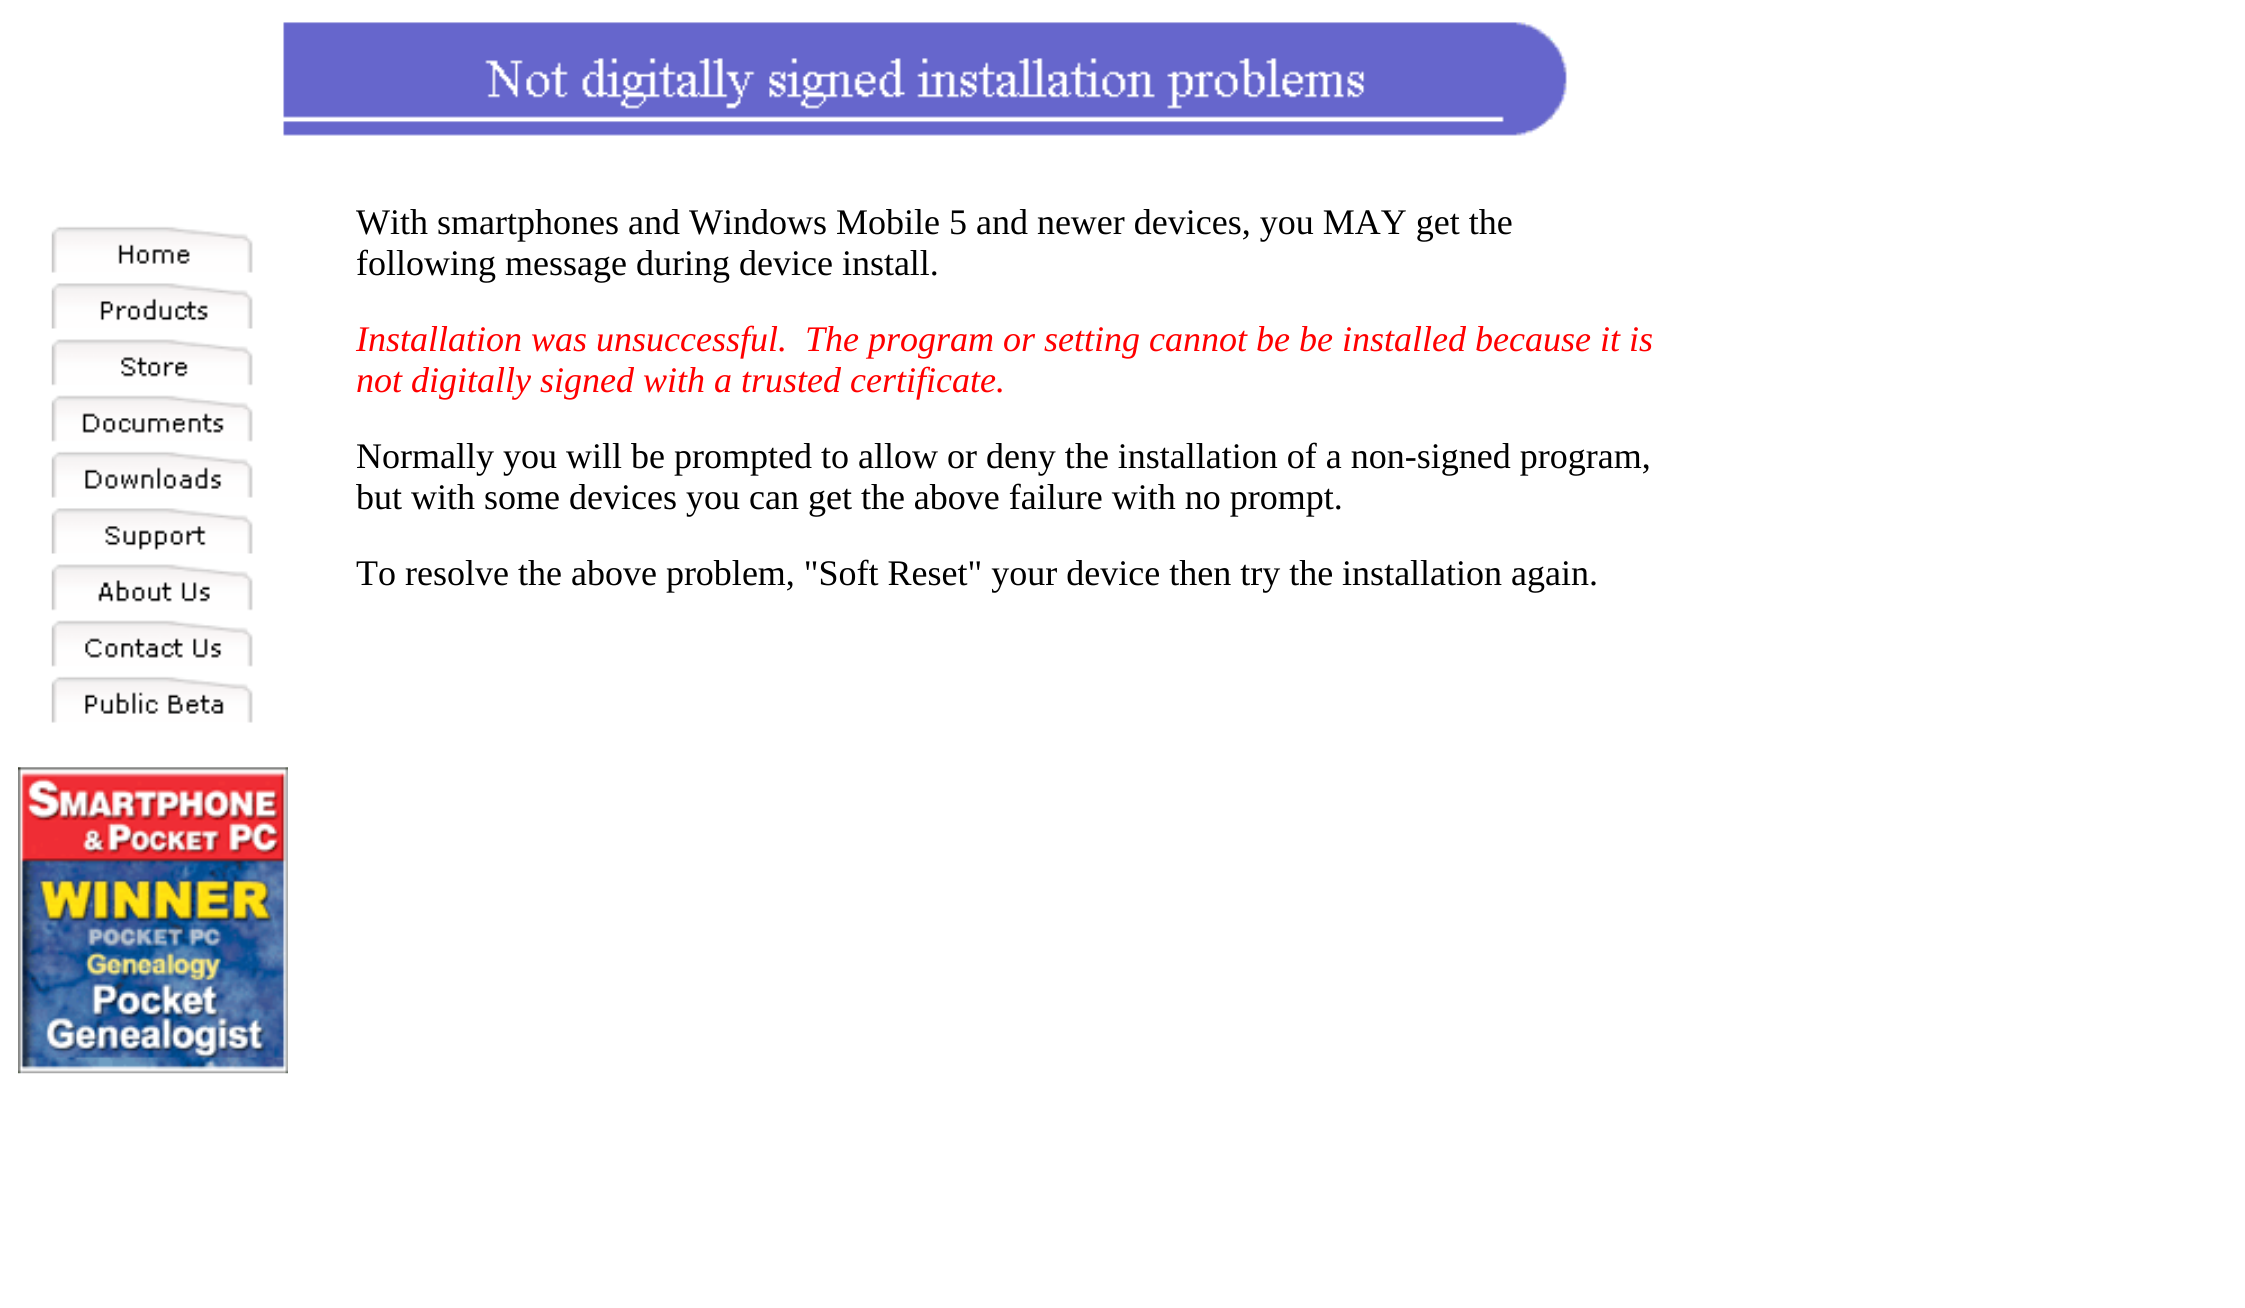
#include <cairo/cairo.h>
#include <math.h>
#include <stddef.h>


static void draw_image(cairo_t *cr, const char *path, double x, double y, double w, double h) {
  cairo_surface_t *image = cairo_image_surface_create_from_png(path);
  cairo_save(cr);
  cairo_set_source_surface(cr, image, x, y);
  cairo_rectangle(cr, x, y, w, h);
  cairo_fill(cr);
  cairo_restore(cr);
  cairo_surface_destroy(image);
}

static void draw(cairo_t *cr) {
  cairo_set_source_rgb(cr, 1, 1, 1);
  cairo_paint(cr);
  draw_image(cr, "images/1.png", 283, 22, 1284, 114);
  draw_image(cr, "images/2.png", 51, 226, 202, 47);
  draw_image(cr, "images/3.png", 51, 283, 202, 46);
  draw_image(cr, "images/4.png", 51, 339, 202, 47);
  draw_image(cr, "images/5.png", 51, 395, 202, 47);
  draw_image(cr, "images/6.png", 51, 451, 202, 47);
  draw_image(cr, "images/7.png", 51, 508, 202, 46);
  draw_image(cr, "images/8.png", 51, 564, 202, 47);
  draw_image(cr, "images/9.png", 51, 620, 202, 47);
  draw_image(cr, "images/10.png", 51, 676, 202, 47);
  draw_image(cr, "images/11.png", 18, 767, 270, 307);
  cairo_select_font_face(cr, "Liberation Serif", CAIRO_FONT_SLANT_NORMAL, CAIRO_FONT_WEIGHT_NORMAL);
  cairo_set_font_size(cr, 36);
  cairo_set_source_rgb(cr, 0, 0, 0);
  cairo_move_to(cr, 356, 234);
  cairo_show_text(cr, "With smartphones and Windows Mobile 5 and newer devices, you MAY get the");
  cairo_move_to(cr, 356, 275);
  cairo_show_text(cr, "following message during device install.");
  cairo_select_font_face(cr, "Liberation Serif", CAIRO_FONT_SLANT_ITALIC, CAIRO_FONT_WEIGHT_NORMAL);
  cairo_set_source_rgb(cr, 1, 0, 0);
  cairo_move_to(cr, 356, 351);
  cairo_show_text(cr, "Installation was unsuccessful.  The program or setting cannot be be installed because it is");
  cairo_move_to(cr, 356, 392);
  cairo_show_text(cr, "not digitally signed with a trusted certificate.");
  cairo_select_font_face(cr, "Liberation Serif", CAIRO_FONT_SLANT_NORMAL, CAIRO_FONT_WEIGHT_NORMAL);
  cairo_set_source_rgb(cr, 0, 0, 0);
  cairo_move_to(cr, 356, 468);
  cairo_show_text(cr, "Normally you will be prompted to allow or deny the installation of a non-signed program,");
  cairo_move_to(cr, 356, 509);
  cairo_show_text(cr, "but with some devices you can get the above failure with no prompt.");
  cairo_move_to(cr, 356, 585);
  cairo_show_text(cr, "To resolve the above problem, \"Soft Reset\" your device then try the installation again.");
}

int main(void) {
  cairo_surface_t *surface = cairo_image_surface_create(CAIRO_FORMAT_RGB24, 2245, 1308);
  cairo_t *cr = cairo_create(surface);
  cairo_font_options_t *options = cairo_font_options_create();
  cairo_font_options_set_hint_metrics(options, CAIRO_HINT_METRICS_OFF);
  cairo_font_options_set_hint_style(options, CAIRO_HINT_STYLE_NONE);
  cairo_set_font_options(cr, options);
  cairo_set_miter_limit(cr, 4);
  draw(cr);
  cairo_surface_write_to_png(surface, "out.png");
  cairo_font_options_destroy(options);
  cairo_destroy(cr);
  cairo_surface_destroy(surface);
  return 0;
}
